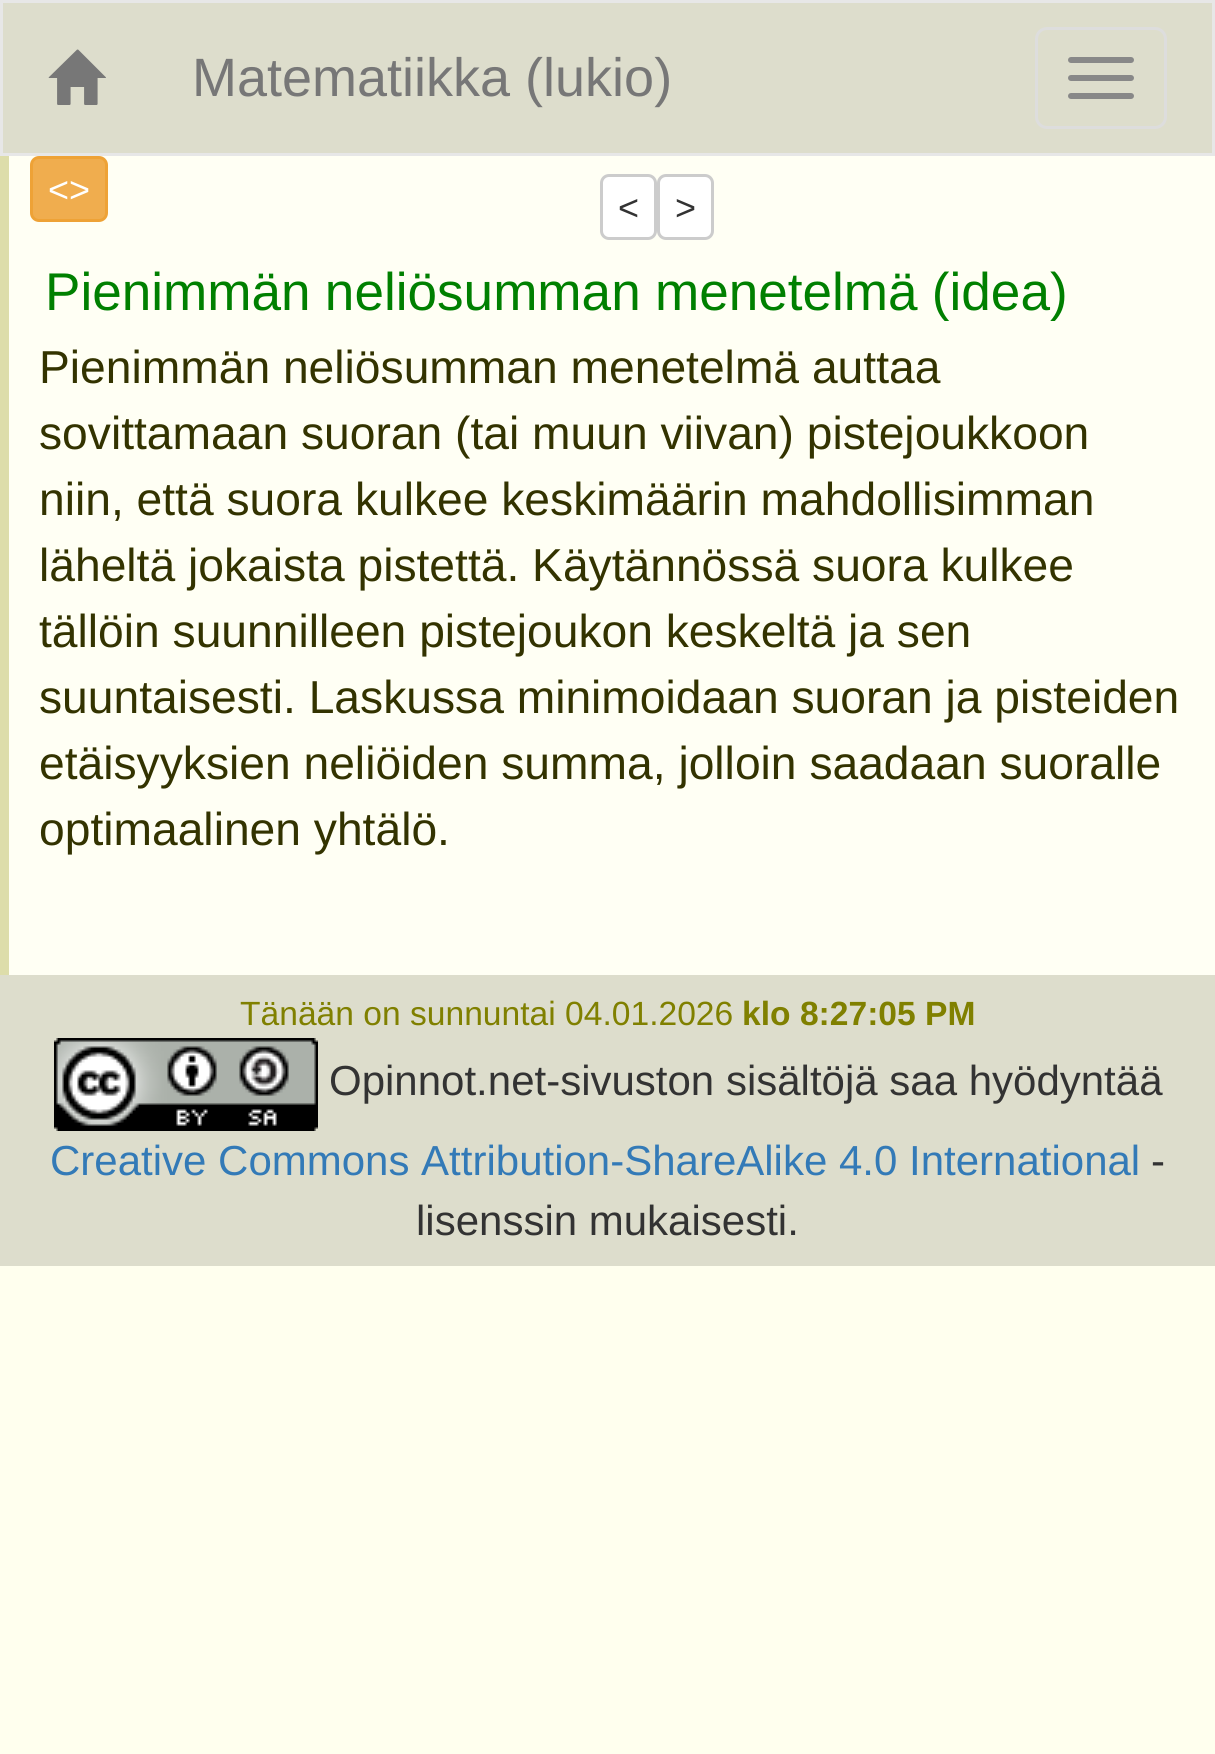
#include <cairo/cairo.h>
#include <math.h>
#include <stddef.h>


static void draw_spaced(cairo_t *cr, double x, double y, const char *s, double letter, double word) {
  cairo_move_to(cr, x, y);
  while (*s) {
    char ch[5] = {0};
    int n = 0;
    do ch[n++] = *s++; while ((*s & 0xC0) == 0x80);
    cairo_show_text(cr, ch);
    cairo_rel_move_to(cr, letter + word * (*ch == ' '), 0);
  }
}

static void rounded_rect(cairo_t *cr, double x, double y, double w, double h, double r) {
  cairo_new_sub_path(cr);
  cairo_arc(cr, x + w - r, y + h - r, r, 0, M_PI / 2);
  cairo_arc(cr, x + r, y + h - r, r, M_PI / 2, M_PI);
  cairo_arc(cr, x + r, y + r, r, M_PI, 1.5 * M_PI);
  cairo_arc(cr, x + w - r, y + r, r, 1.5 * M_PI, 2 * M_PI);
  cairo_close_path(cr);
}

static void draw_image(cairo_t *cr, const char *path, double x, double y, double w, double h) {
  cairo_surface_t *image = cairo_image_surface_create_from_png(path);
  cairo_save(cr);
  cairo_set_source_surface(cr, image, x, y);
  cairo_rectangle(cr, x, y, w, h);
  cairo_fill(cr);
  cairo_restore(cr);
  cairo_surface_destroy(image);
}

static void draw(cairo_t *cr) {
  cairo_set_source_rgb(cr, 1, 1, 238 / 255.0);
  cairo_paint(cr);
  cairo_set_source_rgb(cr, 221 / 255.0, 221 / 255.0, 204 / 255.0);
  cairo_rectangle(cr, 1.5, 1.5, 1212, 153);
  cairo_fill_preserve(cr);
  cairo_set_source_rgb(cr, 231 / 255.0, 231 / 255.0, 231 / 255.0);
  cairo_set_line_width(cr, 3);
  cairo_stroke(cr);
  draw_image(cr, "images/1.png", 48, 49, 58, 56);
  rounded_rect(cr, 1036.5, 28.5, 129, 99, 10.5);
  cairo_set_source_rgb(cr, 221 / 255.0, 221 / 255.0, 221 / 255.0);
  cairo_stroke(cr);
  cairo_set_source_rgb(cr, 136 / 255.0, 136 / 255.0, 136 / 255.0);
  rounded_rect(cr, 1068, 57, 66, 6, 3);
  cairo_fill(cr);
  rounded_rect(cr, 1068, 75, 66, 6, 3);
  cairo_fill(cr);
  rounded_rect(cr, 1068, 93, 66, 6, 3);
  cairo_fill(cr);
  cairo_set_source_rgb(cr, 1, 1, 244 / 255.0);
  cairo_rectangle(cr, 9, 156, 1206, 819);
  cairo_fill(cr);
  cairo_set_source_rgb(cr, 221 / 255.0, 221 / 255.0, 170 / 255.0);
  cairo_rectangle(cr, 0, 156, 9, 819);
  cairo_fill(cr);
  cairo_set_source_rgb(cr, 240 / 255.0, 173 / 255.0, 78 / 255.0);
  rounded_rect(cr, 31.5, 157.5, 75, 63, 7.5);
  cairo_fill_preserve(cr);
  cairo_set_source_rgb(cr, 238 / 255.0, 162 / 255.0, 54 / 255.0);
  cairo_stroke(cr);
  cairo_set_source_rgb(cr, 1, 1, 1);
  rounded_rect(cr, 601.5, 175.5, 54, 63, 7.5);
  cairo_fill_preserve(cr);
  cairo_set_source_rgb(cr, 204 / 255.0, 204 / 255.0, 204 / 255.0);
  cairo_stroke(cr);
  cairo_set_source_rgb(cr, 1, 1, 1);
  rounded_rect(cr, 658.5, 175.5, 54, 63, 7.5);
  cairo_fill_preserve(cr);
  cairo_set_source_rgb(cr, 204 / 255.0, 204 / 255.0, 204 / 255.0);
  cairo_stroke(cr);
  cairo_set_source_rgb(cr, 221 / 255.0, 221 / 255.0, 204 / 255.0);
  cairo_rectangle(cr, 0, 975, 1215, 291);
  cairo_fill(cr);
  draw_image(cr, "images/2.png", 54, 1038, 264, 93);
  cairo_select_font_face(cr, "Liberation Sans", CAIRO_FONT_SLANT_NORMAL, CAIRO_FONT_WEIGHT_NORMAL);
  cairo_set_font_size(cr, 54);
  cairo_set_source_rgb(cr, 119 / 255.0, 119 / 255.0, 119 / 255.0);
  cairo_move_to(cr, 192, 96);
  cairo_show_text(cr, "Matematiikka (lukio)");
  cairo_set_font_size(cr, 36);
  cairo_set_source_rgb(cr, 1, 1, 1);
  cairo_move_to(cr, 48, 202);
  cairo_show_text(cr, "<>");
  cairo_set_source_rgb(cr, 51 / 255.0, 51 / 255.0, 51 / 255.0);
  cairo_move_to(cr, 618, 220);
  cairo_show_text(cr, "<");
  cairo_move_to(cr, 675, 220);
  cairo_show_text(cr, ">");
  cairo_set_font_size(cr, 53.1);
  cairo_set_source_rgb(cr, 0, 128 / 255.0, 0);
  draw_spaced(cr, 45, 310, "Pienimmän neliösumman menetelmä (idea)", 0, -0.5);
  cairo_set_font_size(cr, 46.2);
  cairo_set_source_rgb(cr, 51 / 255.0, 51 / 255.0, 0);
  cairo_move_to(cr, 39, 383);
  cairo_show_text(cr, "Pienimmän neliösumman menetelmä auttaa");
  cairo_move_to(cr, 39, 449);
  cairo_show_text(cr, "sovittamaan suoran (tai muun viivan) pistejoukkoon");
  cairo_move_to(cr, 39, 515);
  cairo_show_text(cr, "niin, että suora kulkee keskimäärin mahdollisimman");
  cairo_move_to(cr, 39, 581);
  cairo_show_text(cr, "läheltä jokaista pistettä. Käytännössä suora kulkee");
  cairo_move_to(cr, 39, 647);
  cairo_show_text(cr, "tällöin suunnilleen pistejoukon keskeltä ja sen");
  cairo_move_to(cr, 39, 713);
  cairo_show_text(cr, "suuntaisesti. Laskussa minimoidaan suoran ja pisteiden");
  cairo_move_to(cr, 39, 779);
  cairo_show_text(cr, "etäisyyksien neliöiden summa, jolloin saadaan suoralle");
  cairo_move_to(cr, 39, 845);
  cairo_show_text(cr, "optimaalinen yhtälö.");
  cairo_set_font_size(cr, 33.6);
  cairo_set_source_rgb(cr, 128 / 255.0, 128 / 255.0, 0);
  cairo_move_to(cr, 240, 1025);
  cairo_show_text(cr, "Tänään on sunnuntai 04.01.2026");
  cairo_select_font_face(cr, "Liberation Sans", CAIRO_FONT_SLANT_NORMAL, CAIRO_FONT_WEIGHT_BOLD);
  cairo_move_to(cr, 742, 1025);
  cairo_show_text(cr, "klo 8:27:05 PM");
  cairo_select_font_face(cr, "Liberation Sans", CAIRO_FONT_SLANT_NORMAL, CAIRO_FONT_WEIGHT_NORMAL);
  cairo_set_font_size(cr, 42);
  cairo_set_source_rgb(cr, 51 / 255.0, 51 / 255.0, 51 / 255.0);
  cairo_move_to(cr, 329, 1095);
  cairo_show_text(cr, "Opinnot.net-sivuston sisältöjä saa hyödyntää");
  cairo_set_source_rgb(cr, 51 / 255.0, 122 / 255.0, 183 / 255.0);
  cairo_move_to(cr, 50, 1175);
  cairo_show_text(cr, "Creative Commons Attribution-ShareAlike 4.0 International");
  cairo_set_source_rgb(cr, 51 / 255.0, 51 / 255.0, 51 / 255.0);
  cairo_move_to(cr, 1151, 1175);
  cairo_show_text(cr, "-");
  cairo_move_to(cr, 416, 1235);
  cairo_show_text(cr, "lisenssin mukaisesti.");
}

int main(void) {
  cairo_surface_t *surface = cairo_image_surface_create(CAIRO_FORMAT_RGB24, 1215, 1754);
  cairo_t *cr = cairo_create(surface);
  cairo_font_options_t *options = cairo_font_options_create();
  cairo_font_options_set_hint_metrics(options, CAIRO_HINT_METRICS_OFF);
  cairo_font_options_set_hint_style(options, CAIRO_HINT_STYLE_NONE);
  cairo_set_font_options(cr, options);
  cairo_set_miter_limit(cr, 4);
  draw(cr);
  cairo_surface_write_to_png(surface, "out.png");
  cairo_font_options_destroy(options);
  cairo_destroy(cr);
  cairo_surface_destroy(surface);
  return 0;
}
